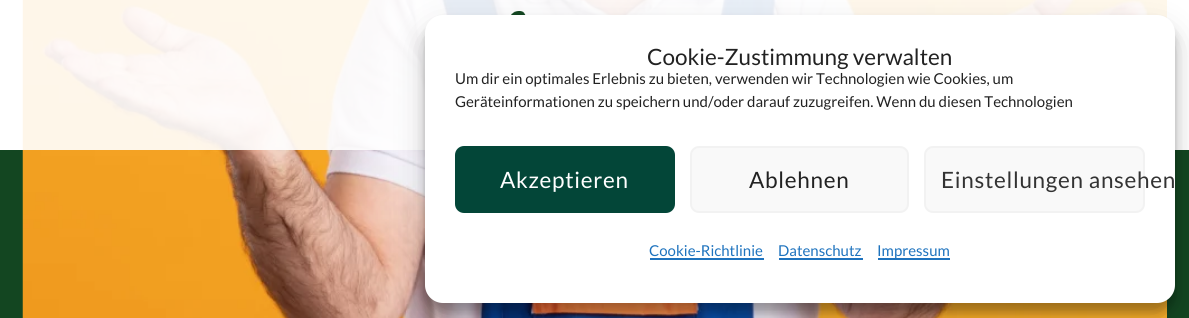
#include <cairo/cairo.h>
#include <math.h>
#include <stddef.h>


static void draw_spaced(cairo_t *cr, double x, double y, const char *s, double letter, double word) {
  cairo_move_to(cr, x, y);
  while (*s) {
    char ch[5] = {0};
    int n = 0;
    do ch[n++] = *s++; while ((*s & 0xC0) == 0x80);
    cairo_show_text(cr, ch);
    cairo_rel_move_to(cr, letter + word * (*ch == ' '), 0);
  }
}

static void rounded_rect(cairo_t *cr, double x, double y, double w, double h, double r) {
  cairo_new_sub_path(cr);
  cairo_arc(cr, x + w - r, y + h - r, r, 0, M_PI / 2);
  cairo_arc(cr, x + r, y + h - r, r, M_PI / 2, M_PI);
  cairo_arc(cr, x + r, y + r, r, M_PI, 1.5 * M_PI);
  cairo_arc(cr, x + w - r, y + r, r, 1.5 * M_PI, 2 * M_PI);
  cairo_close_path(cr);
}

static void draw_shadow(cairo_t *cr, double x, double y, double w, double h, double r, double blur, double alpha) {
  cairo_push_group_with_content(cr, CAIRO_CONTENT_ALPHA);
  cairo_set_operator(cr, CAIRO_OPERATOR_SOURCE);
  for (int i = 15; i >= -15 && fmin(w, h) + blur * i / 3 > 0; i -= 2) {
    double e = blur * i / 6;
    cairo_set_source_rgba(cr, 0, 0, 0, alpha * erfc((i - 1) / 8.5) / 2);
    rounded_rect(cr, x - e, y - e, w + 2 * e, h + 2 * e, fmax(0, fmin(r + e + blur * .6, fmin(w, h) / 2 + e)));
    cairo_fill(cr);
  }
  cairo_pattern_t *soft = cairo_pop_group(cr);
  cairo_mask(cr, soft);
  cairo_pattern_destroy(soft);
}

static void draw_image(cairo_t *cr, const char *path, double x, double y, double w, double h) {
  cairo_surface_t *image = cairo_image_surface_create_from_png(path);
  cairo_save(cr);
  cairo_set_source_surface(cr, image, x, y);
  cairo_rectangle(cr, x, y, w, h);
  cairo_fill(cr);
  cairo_restore(cr);
  cairo_surface_destroy(image);
}

static void draw(cairo_t *cr) {
  cairo_set_source_rgb(cr, 1, 1, 1);
  cairo_paint(cr);
  cairo_set_source_rgb(cr, 19 / 255.0, 70 / 255.0, 33 / 255.0);
  cairo_rectangle(cr, 0, 150, 1189, 168);
  cairo_fill(cr);
  draw_image(cr, "images/1.png", 22, 0, 1145, 318);
  cairo_set_source_rgba(cr, 1, 1, 1, 0.9);
  cairo_rectangle(cr, 22, 0, 1145, 150);
  cairo_fill(cr);
  draw_image(cr, "images/2.png", 508, 10, 19, 5);
  cairo_set_source_rgb(cr, 0, 0, 0);
  draw_shadow(cr, 425, 24, 750, 288, 18, 4.5, 0.23);
  draw_shadow(cr, 425, 30, 750, 288, 18, 15, 0.19);
  cairo_set_source_rgb(cr, 1, 1, 1);
  rounded_rect(cr, 425, 15, 750, 288, 18);
  cairo_fill(cr);
  cairo_set_source_rgb(cr, 3 / 255.0, 70 / 255.0, 56 / 255.0);
  rounded_rect(cr, 456, 147, 218, 65, 8);
  cairo_fill_preserve(cr);
  cairo_stroke(cr);
  cairo_set_source_rgb(cr, 249 / 255.0, 249 / 255.0, 249 / 255.0);
  rounded_rect(cr, 691, 147, 217, 65, 8);
  cairo_fill_preserve(cr);
  cairo_set_source_rgb(cr, 242 / 255.0, 242 / 255.0, 242 / 255.0);
  cairo_stroke(cr);
  cairo_set_source_rgb(cr, 249 / 255.0, 249 / 255.0, 249 / 255.0);
  rounded_rect(cr, 925, 147, 219, 65, 8);
  cairo_fill_preserve(cr);
  cairo_set_source_rgb(cr, 242 / 255.0, 242 / 255.0, 242 / 255.0);
  cairo_stroke(cr);
  cairo_set_source_rgb(cr, 30 / 255.0, 115 / 255.0, 190 / 255.0);
  cairo_rectangle(cr, 650, 258, 114, 2);
  cairo_fill(cr);
  cairo_rectangle(cr, 779, 258, 84, 2);
  cairo_fill(cr);
  cairo_rectangle(cr, 878, 258, 72, 2);
  cairo_fill(cr);
  cairo_select_font_face(cr, "Lato", CAIRO_FONT_SLANT_NORMAL, CAIRO_FONT_WEIGHT_NORMAL);
  cairo_set_font_size(cr, 22.5);
  cairo_set_source_rgb(cr, 34 / 255.0, 34 / 255.0, 34 / 255.0);
  cairo_move_to(cr, 647, 65);
  cairo_show_text(cr, "Cookie-Zustimmung verwalten");
  cairo_set_font_size(cr, 15);
  cairo_move_to(cr, 455, 84);
  cairo_show_text(cr, "Um dir ein optimales Erlebnis zu bieten, verwenden wir Technologien wie Cookies, um");
  cairo_move_to(cr, 455, 107);
  cairo_show_text(cr, "Geräteinformationen zu speichern und/oder darauf zuzugreifen. Wenn du diesen Technologien");
  cairo_set_font_size(cr, 22.5);
  cairo_set_source_rgb(cr, 1, 1, 1);
  draw_spaced(cr, 500, 188, "Akzeptieren", 0.7, 0);
  cairo_set_source_rgb(cr, 34 / 255.0, 34 / 255.0, 34 / 255.0);
  draw_spaced(cr, 749, 188, "Ablehnen", 0.7, 0);
  cairo_set_source_rgb(cr, 51 / 255.0, 51 / 255.0, 51 / 255.0);
  draw_spaced(cr, 941, 188, "Einstellungen ansehen", 0.7, 0);
  cairo_set_font_size(cr, 15);
  cairo_set_source_rgb(cr, 30 / 255.0, 115 / 255.0, 190 / 255.0);
  cairo_move_to(cr, 649, 256);
  cairo_show_text(cr, "Cookie-Richtlinie");
  cairo_move_to(cr, 778, 256);
  cairo_show_text(cr, "Datenschutz");
  cairo_move_to(cr, 877, 256);
  cairo_show_text(cr, "Impressum");
}

int main(void) {
  cairo_surface_t *surface = cairo_image_surface_create(CAIRO_FORMAT_RGB24, 1189, 318);
  cairo_t *cr = cairo_create(surface);
  cairo_font_options_t *options = cairo_font_options_create();
  cairo_font_options_set_hint_metrics(options, CAIRO_HINT_METRICS_OFF);
  cairo_font_options_set_hint_style(options, CAIRO_HINT_STYLE_NONE);
  cairo_set_font_options(cr, options);
  cairo_set_miter_limit(cr, 4);
  draw(cr);
  cairo_surface_write_to_png(surface, "out.png");
  cairo_font_options_destroy(options);
  cairo_destroy(cr);
  cairo_surface_destroy(surface);
  return 0;
}
